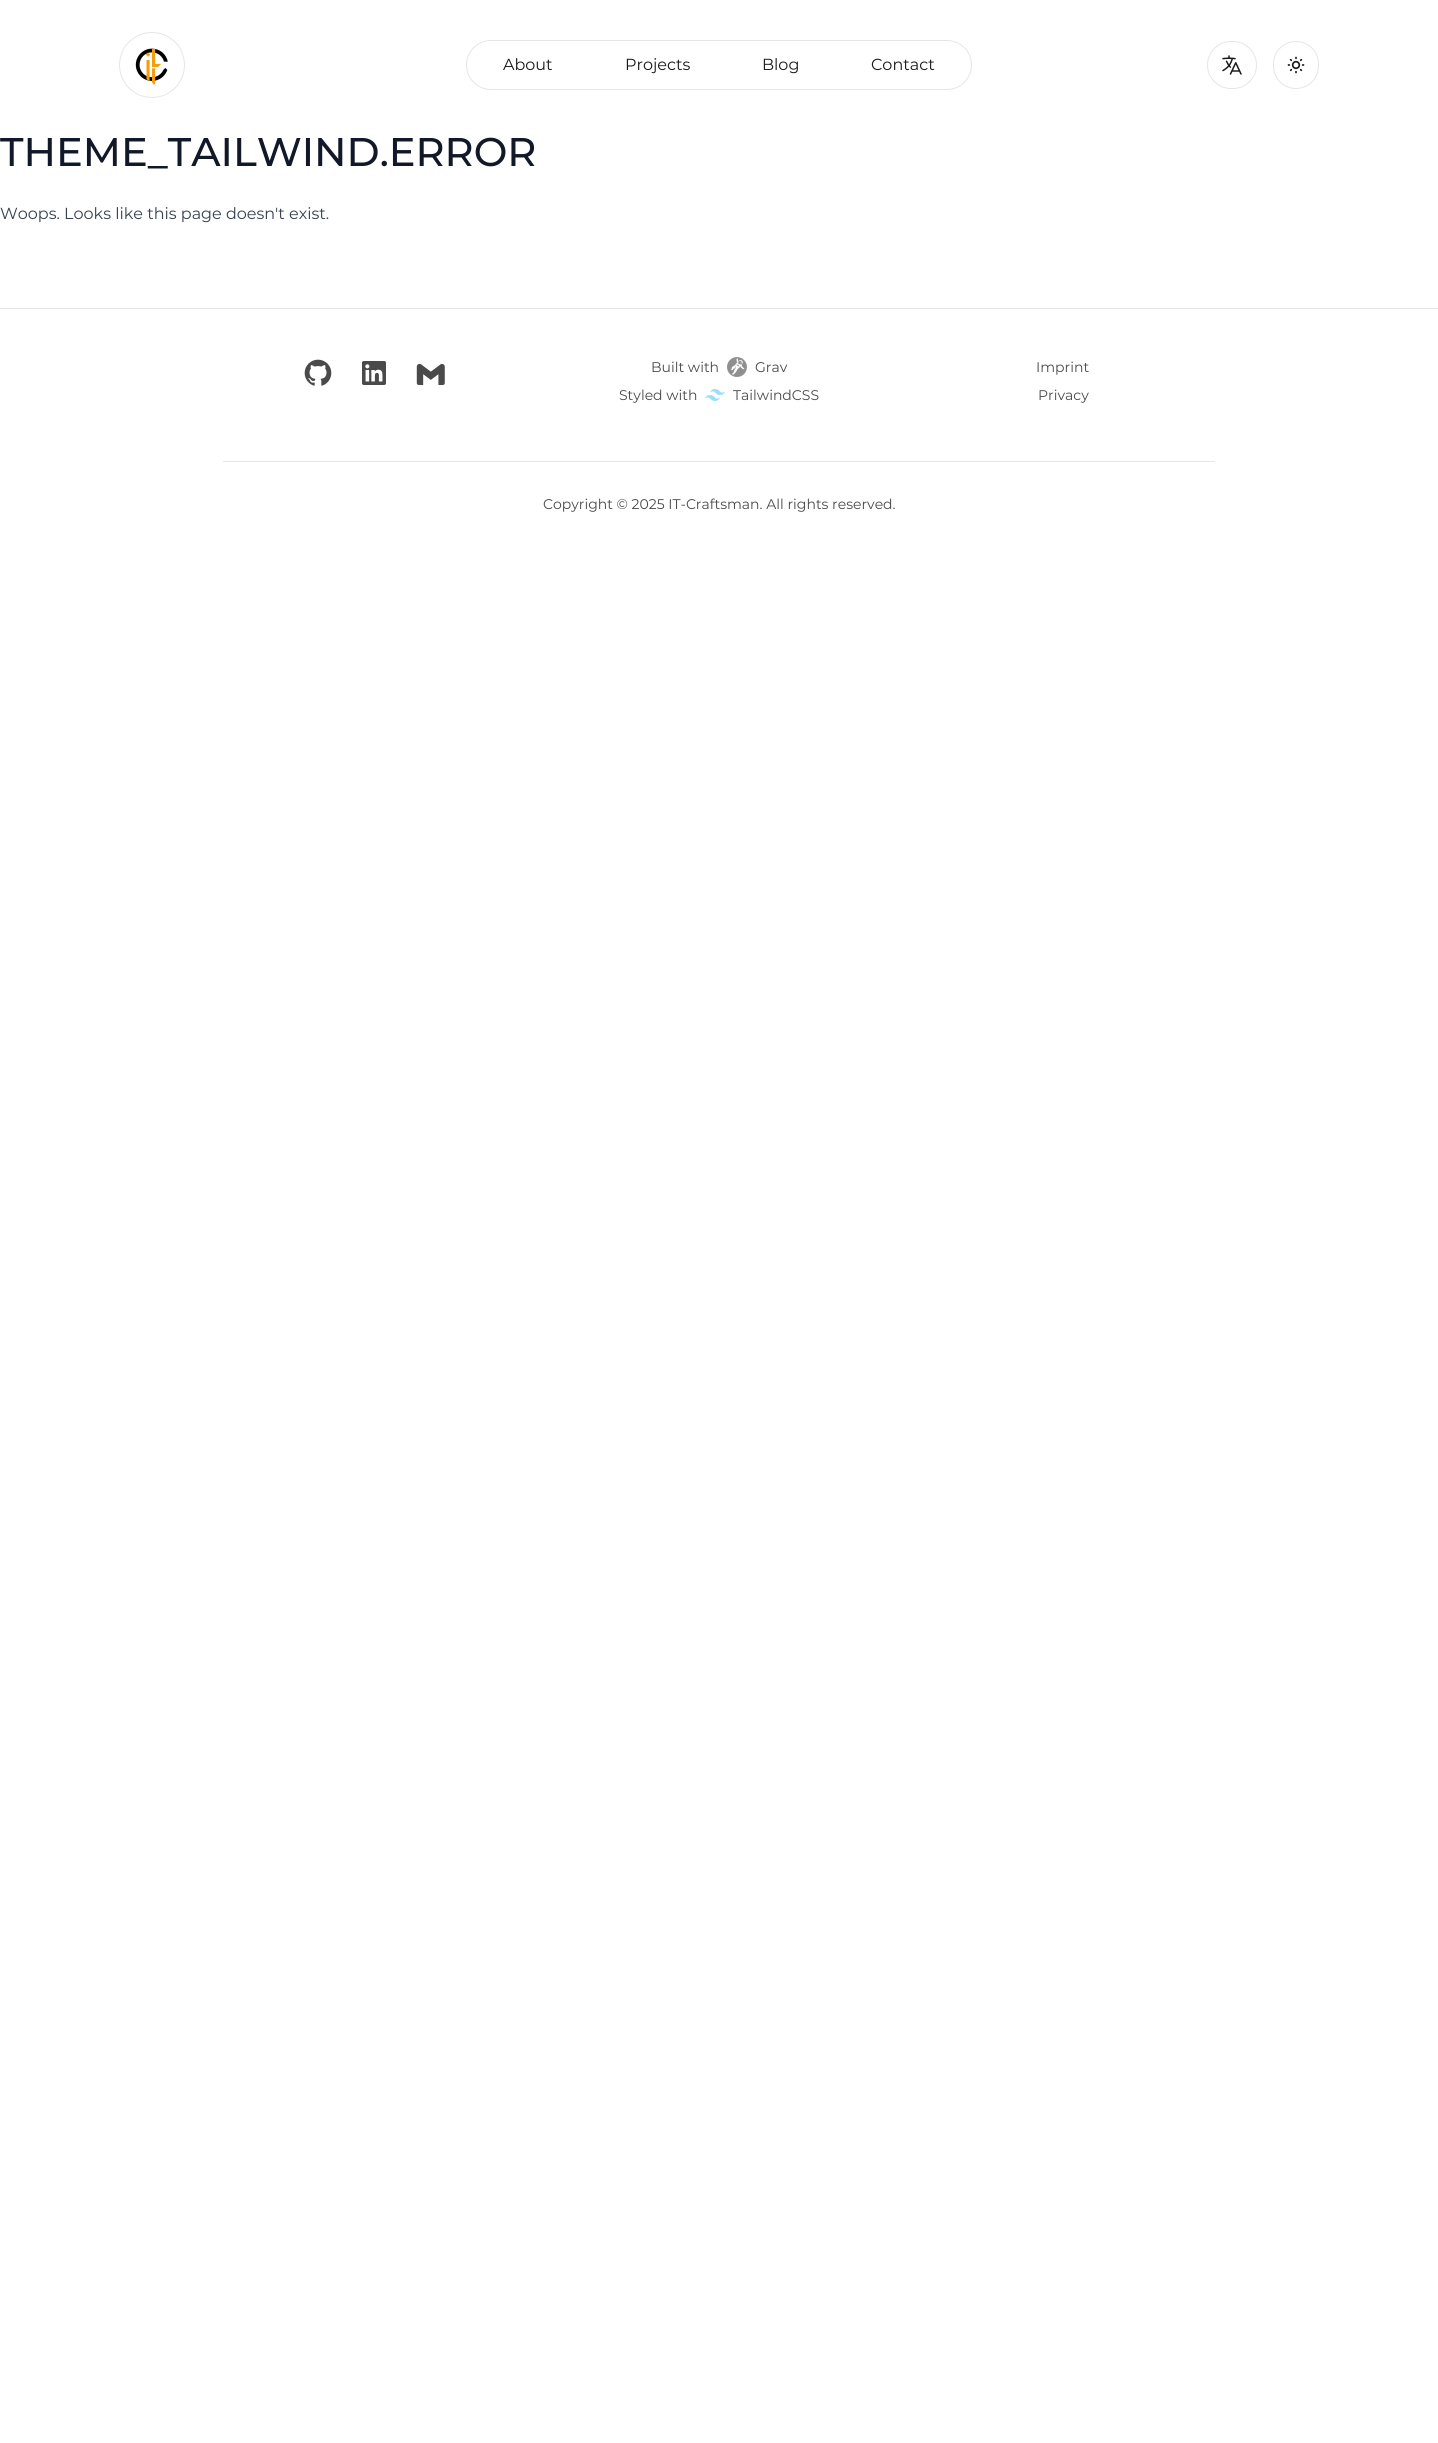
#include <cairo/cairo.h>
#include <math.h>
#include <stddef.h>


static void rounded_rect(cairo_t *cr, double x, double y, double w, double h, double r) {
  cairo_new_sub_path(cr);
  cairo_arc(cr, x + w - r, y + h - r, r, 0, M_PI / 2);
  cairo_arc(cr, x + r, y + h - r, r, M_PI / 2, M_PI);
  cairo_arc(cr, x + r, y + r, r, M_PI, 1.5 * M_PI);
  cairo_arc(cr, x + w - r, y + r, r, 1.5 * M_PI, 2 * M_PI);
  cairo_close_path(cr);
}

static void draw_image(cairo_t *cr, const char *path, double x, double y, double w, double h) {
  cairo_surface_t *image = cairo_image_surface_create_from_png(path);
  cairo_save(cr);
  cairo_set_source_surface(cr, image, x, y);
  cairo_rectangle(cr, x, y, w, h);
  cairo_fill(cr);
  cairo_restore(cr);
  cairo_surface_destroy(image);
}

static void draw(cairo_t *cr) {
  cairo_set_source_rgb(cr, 1, 1, 1);
  cairo_paint(cr);
  cairo_arc(cr, 152, 65, 32.5, 0, 2 * M_PI);
  cairo_set_source_rgb(cr, 230 / 255.0, 230 / 255.0, 230 / 255.0);
  cairo_set_line_width(cr, 1);
  cairo_stroke(cr);
  draw_image(cr, "images/1.png", 135, 48, 33, 37);
  rounded_rect(cr, 466.5, 40.5, 505, 49, 24.5);
  cairo_stroke(cr);
  rounded_rect(cr, 1207.5, 41.5, 49, 47, 23.5);
  cairo_stroke(cr);
  draw_image(cr, "images/2.png", 1222, 55, 20, 20);
  rounded_rect(cr, 1273.5, 41.5, 45, 47, 22.5);
  cairo_stroke(cr);
  draw_image(cr, "images/3.png", 1287, 56, 18, 18);
  cairo_rectangle(cr, 0, 308, 1438, 1);
  cairo_fill(cr);
  draw_image(cr, "images/4.png", 304, 359, 28, 27);
  draw_image(cr, "images/5.png", 362, 361, 24, 24);
  draw_image(cr, "images/6.png", 416, 363, 29, 22);
  draw_image(cr, "images/7.png", 727, 357, 20, 20);
  draw_image(cr, "images/8.png", 705, 389, 20, 12);
  cairo_rectangle(cr, 223, 461, 992, 1);
  cairo_fill(cr);
  cairo_select_font_face(cr, "Montserrat", CAIRO_FONT_SLANT_NORMAL, CAIRO_FONT_WEIGHT_NORMAL);
  cairo_set_font_size(cr, 16);
  cairo_set_source_rgb(cr, 26 / 255.0, 26 / 255.0, 26 / 255.0);
  cairo_move_to(cr, 503, 70);
  cairo_show_text(cr, "About");
  cairo_move_to(cr, 625, 70);
  cairo_show_text(cr, "Projects");
  cairo_move_to(cr, 762, 70);
  cairo_show_text(cr, "Blog");
  cairo_move_to(cr, 871, 70);
  cairo_show_text(cr, "Contact");
  cairo_select_font_face(cr, "Montserrat Medium", CAIRO_FONT_SLANT_NORMAL, CAIRO_FONT_WEIGHT_NORMAL);
  cairo_set_font_size(cr, 40);
  cairo_set_source_rgb(cr, 17 / 255.0, 24 / 255.0, 39 / 255.0);
  cairo_move_to(cr, 0, 166);
  cairo_show_text(cr, "THEME_TAILWIND.ERROR");
  cairo_select_font_face(cr, "Montserrat", CAIRO_FONT_SLANT_NORMAL, CAIRO_FONT_WEIGHT_NORMAL);
  cairo_set_font_size(cr, 16);
  cairo_set_source_rgb(cr, 55 / 255.0, 65 / 255.0, 81 / 255.0);
  cairo_move_to(cr, 0, 219);
  cairo_show_text(cr, "Woops. Looks like this page doesn't exist.");
  cairo_set_font_size(cr, 14);
  cairo_set_source_rgb(cr, 74 / 255.0, 74 / 255.0, 74 / 255.0);
  cairo_move_to(cr, 651, 372);
  cairo_show_text(cr, "Built with");
  cairo_move_to(cr, 755, 372);
  cairo_show_text(cr, "Grav");
  cairo_move_to(cr, 619, 400);
  cairo_show_text(cr, "Styled with");
  cairo_move_to(cr, 733, 400);
  cairo_show_text(cr, "TailwindCSS");
  cairo_move_to(cr, 1036, 372);
  cairo_show_text(cr, "Imprint");
  cairo_move_to(cr, 1038, 400);
  cairo_show_text(cr, "Privacy");
  cairo_move_to(cr, 543, 509);
  cairo_show_text(cr, "Copyright © 2025 IT-Craftsman. All rights reserved.");
}

int main(void) {
  cairo_surface_t *surface = cairo_image_surface_create(CAIRO_FORMAT_RGB24, 1438, 2443);
  cairo_t *cr = cairo_create(surface);
  cairo_font_options_t *options = cairo_font_options_create();
  cairo_font_options_set_hint_metrics(options, CAIRO_HINT_METRICS_OFF);
  cairo_font_options_set_hint_style(options, CAIRO_HINT_STYLE_NONE);
  cairo_set_font_options(cr, options);
  cairo_set_miter_limit(cr, 4);
  draw(cr);
  cairo_surface_write_to_png(surface, "out.png");
  cairo_font_options_destroy(options);
  cairo_destroy(cr);
  cairo_surface_destroy(surface);
  return 0;
}
